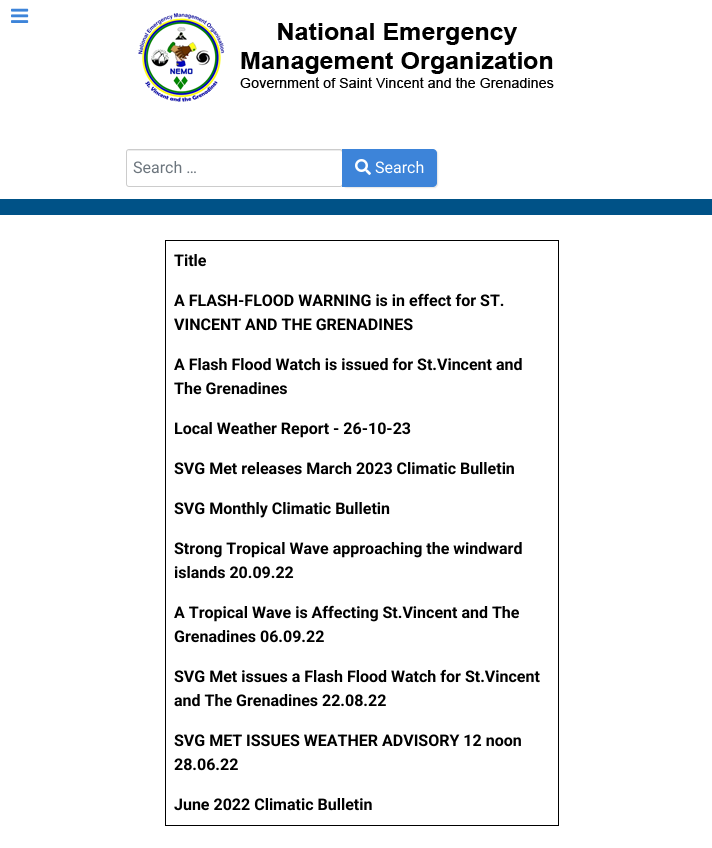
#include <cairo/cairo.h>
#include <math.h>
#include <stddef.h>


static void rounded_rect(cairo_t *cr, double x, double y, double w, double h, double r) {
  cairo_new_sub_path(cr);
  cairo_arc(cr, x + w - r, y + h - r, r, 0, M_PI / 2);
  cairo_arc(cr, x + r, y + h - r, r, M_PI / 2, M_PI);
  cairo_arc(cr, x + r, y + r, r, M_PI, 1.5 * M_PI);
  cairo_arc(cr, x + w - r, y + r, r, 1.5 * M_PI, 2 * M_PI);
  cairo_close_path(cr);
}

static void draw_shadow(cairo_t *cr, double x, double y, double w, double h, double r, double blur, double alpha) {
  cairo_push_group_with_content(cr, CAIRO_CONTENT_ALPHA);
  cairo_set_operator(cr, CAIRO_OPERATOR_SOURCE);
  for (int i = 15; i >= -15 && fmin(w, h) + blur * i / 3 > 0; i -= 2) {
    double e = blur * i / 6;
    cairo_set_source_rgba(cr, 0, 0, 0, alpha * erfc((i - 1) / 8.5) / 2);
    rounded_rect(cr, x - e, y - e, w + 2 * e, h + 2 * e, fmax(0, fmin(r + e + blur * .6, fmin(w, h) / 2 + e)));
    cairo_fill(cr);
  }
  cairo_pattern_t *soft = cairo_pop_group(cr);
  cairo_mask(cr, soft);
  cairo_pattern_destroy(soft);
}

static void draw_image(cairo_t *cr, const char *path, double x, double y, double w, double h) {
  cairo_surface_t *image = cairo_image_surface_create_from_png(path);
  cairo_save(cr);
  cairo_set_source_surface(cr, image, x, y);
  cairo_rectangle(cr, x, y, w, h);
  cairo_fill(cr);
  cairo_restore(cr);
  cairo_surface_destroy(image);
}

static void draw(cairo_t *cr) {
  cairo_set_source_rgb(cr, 1, 1, 1);
  cairo_paint(cr);
  draw_image(cr, "images/1.png", 11, 8, 18, 15);
  draw_image(cr, "images/2.png", 138, 13, 416, 89);
  cairo_set_source_rgb(cr, 236 / 255.0, 236 / 255.0, 236 / 255.0);
  cairo_new_path(cr);
  cairo_move_to(cr, 129, 151);
  cairo_line_to(cr, 340, 151);
  cairo_curve_to(cr, 341, 151, 342, 152, 342, 153);
  cairo_curve_to(cr, 342, 152, 342, 150, 340, 150);
  cairo_line_to(cr, 129, 150);
  cairo_line_to(cr, 128, 151);
  cairo_line_to(cr, 127, 153);
  cairo_curve_to(cr, 127, 152, 128, 151, 129, 151);
  cairo_close_path(cr);
  cairo_fill(cr);
  rounded_rect(cr, 126.5, 149.5, 216, 37, 2.5);
  cairo_set_source_rgba(cr, 0, 0, 0, 0.2);
  cairo_set_line_width(cr, 1);
  cairo_stroke(cr);
  cairo_set_source_rgb(cr, 0, 0, 0);
  draw_shadow(cr, 343, 150, 95, 38, 4, 0.5, 0.1);
  cairo_set_source_rgb(cr, 61 / 255.0, 132 / 255.0, 217 / 255.0);
  cairo_new_path(cr);
  cairo_move_to(cr, 342, 149);
  cairo_line_to(cr, 433, 149);
  cairo_curve_to(cr, 435, 149, 437, 151, 437, 153);
  cairo_line_to(cr, 437, 183);
  cairo_curve_to(cr, 437, 185, 435, 187, 433, 187);
  cairo_line_to(cr, 342, 187);
  cairo_close_path(cr);
  cairo_fill(cr);
  draw_image(cr, "images/3.png", 355, 159, 16, 16);
  cairo_set_source_rgb(cr, 0, 82 / 255.0, 135 / 255.0);
  cairo_rectangle(cr, 0, 199, 712, 16);
  cairo_fill(cr);
  cairo_set_source_rgb(cr, 0, 0, 0);
  cairo_rectangle(cr, 165, 240, 394, 1);
  cairo_fill(cr);
  cairo_rectangle(cr, 558, 240, 1, 586);
  cairo_fill(cr);
  cairo_rectangle(cr, 165, 825, 394, 1);
  cairo_fill(cr);
  cairo_rectangle(cr, 165, 240, 1, 586);
  cairo_fill(cr);
  cairo_select_font_face(cr, "Roboto", CAIRO_FONT_SLANT_NORMAL, CAIRO_FONT_WEIGHT_NORMAL);
  cairo_set_font_size(cr, 16);
  cairo_set_source_rgb(cr, 108 / 255.0, 117 / 255.0, 125 / 255.0);
  cairo_move_to(cr, 133, 173);
  cairo_show_text(cr, "Search …");
  cairo_set_source_rgb(cr, 1, 1, 1);
  cairo_move_to(cr, 375, 173);
  cairo_show_text(cr, "Search");
  cairo_select_font_face(cr, "Roboto", CAIRO_FONT_SLANT_NORMAL, CAIRO_FONT_WEIGHT_BOLD);
  cairo_set_source_rgb(cr, 0, 0, 0);
  cairo_move_to(cr, 174, 266);
  cairo_show_text(cr, "Title");
  cairo_move_to(cr, 174, 306);
  cairo_show_text(cr, "A FLASH-FLOOD WARNING is in effect for ST.");
  cairo_move_to(cr, 174, 330);
  cairo_show_text(cr, "VINCENT AND THE GRENADINES");
  cairo_move_to(cr, 174, 370);
  cairo_show_text(cr, "A Flash Flood Watch is issued for St.Vincent and");
  cairo_move_to(cr, 174, 394);
  cairo_show_text(cr, "The Grenadines");
  cairo_move_to(cr, 174, 434);
  cairo_show_text(cr, "Local Weather Report - 26-10-23");
  cairo_move_to(cr, 174, 474);
  cairo_show_text(cr, "SVG Met releases March 2023 Climatic Bulletin");
  cairo_move_to(cr, 174, 514);
  cairo_show_text(cr, "SVG Monthly Climatic Bulletin");
  cairo_move_to(cr, 174, 554);
  cairo_show_text(cr, "Strong Tropical Wave approaching the windward");
  cairo_move_to(cr, 174, 578);
  cairo_show_text(cr, "islands 20.09.22");
  cairo_move_to(cr, 174, 618);
  cairo_show_text(cr, "A Tropical Wave is Affecting St.Vincent and The");
  cairo_move_to(cr, 174, 642);
  cairo_show_text(cr, "Grenadines 06.09.22");
  cairo_move_to(cr, 174, 682);
  cairo_show_text(cr, "SVG Met issues a Flash Flood Watch for St.Vincent");
  cairo_move_to(cr, 174, 706);
  cairo_show_text(cr, "and The Grenadines 22.08.22");
  cairo_move_to(cr, 174, 746);
  cairo_show_text(cr, "SVG MET ISSUES WEATHER ADVISORY 12 noon");
  cairo_move_to(cr, 174, 770);
  cairo_show_text(cr, "28.06.22");
  cairo_move_to(cr, 174, 810);
  cairo_show_text(cr, "June 2022 Climatic Bulletin");
}

int main(void) {
  cairo_surface_t *surface = cairo_image_surface_create(CAIRO_FORMAT_RGB24, 712, 848);
  cairo_t *cr = cairo_create(surface);
  cairo_font_options_t *options = cairo_font_options_create();
  cairo_font_options_set_hint_metrics(options, CAIRO_HINT_METRICS_OFF);
  cairo_font_options_set_hint_style(options, CAIRO_HINT_STYLE_NONE);
  cairo_set_font_options(cr, options);
  cairo_set_miter_limit(cr, 4);
  draw(cr);
  cairo_surface_write_to_png(surface, "out.png");
  cairo_font_options_destroy(options);
  cairo_destroy(cr);
  cairo_surface_destroy(surface);
  return 0;
}
